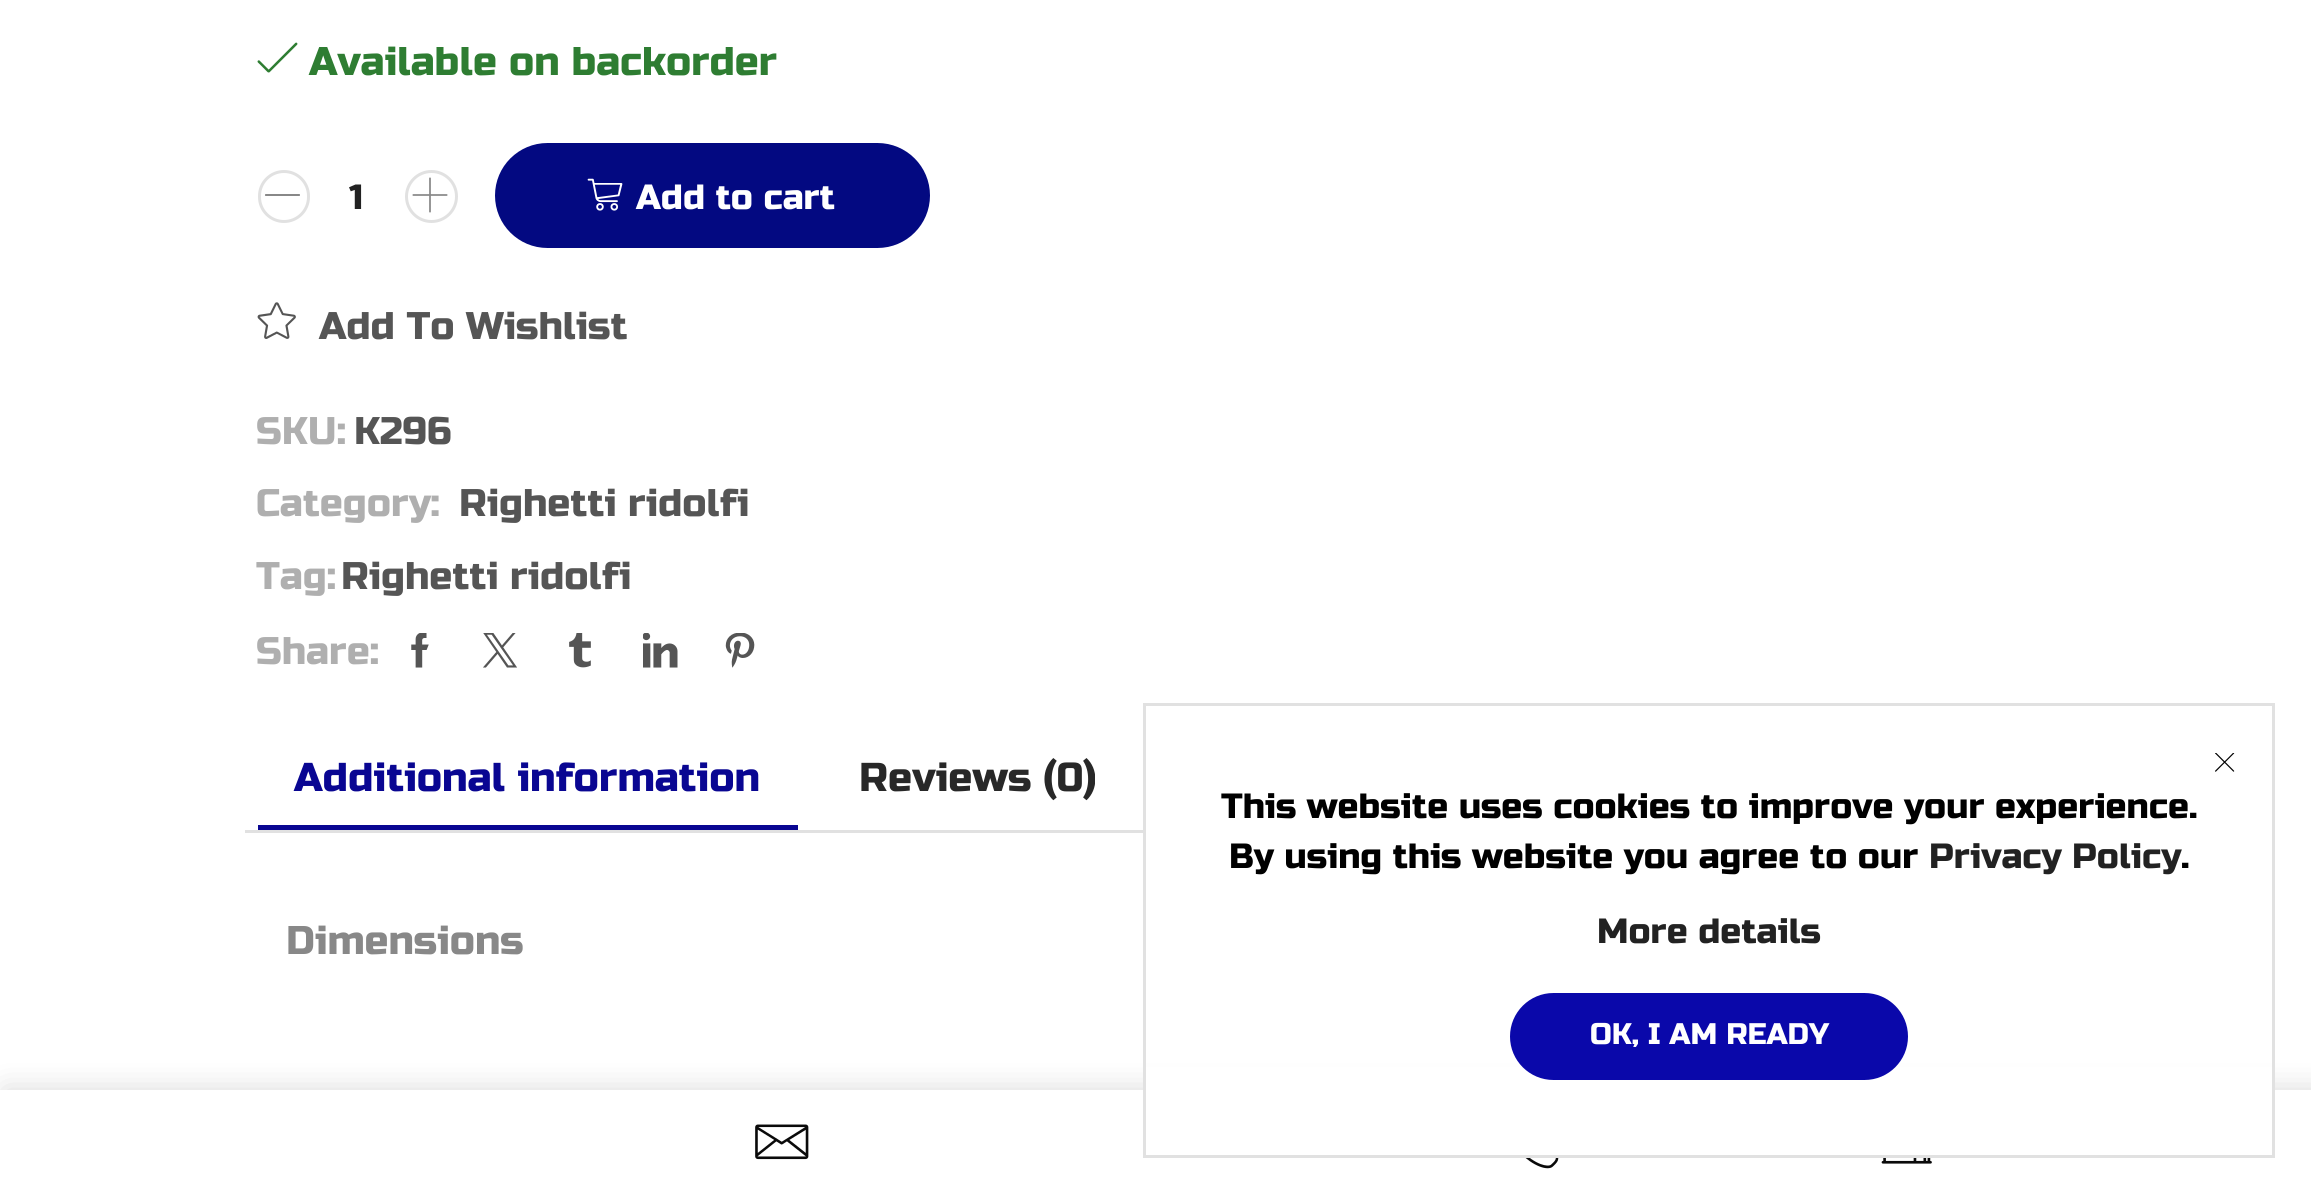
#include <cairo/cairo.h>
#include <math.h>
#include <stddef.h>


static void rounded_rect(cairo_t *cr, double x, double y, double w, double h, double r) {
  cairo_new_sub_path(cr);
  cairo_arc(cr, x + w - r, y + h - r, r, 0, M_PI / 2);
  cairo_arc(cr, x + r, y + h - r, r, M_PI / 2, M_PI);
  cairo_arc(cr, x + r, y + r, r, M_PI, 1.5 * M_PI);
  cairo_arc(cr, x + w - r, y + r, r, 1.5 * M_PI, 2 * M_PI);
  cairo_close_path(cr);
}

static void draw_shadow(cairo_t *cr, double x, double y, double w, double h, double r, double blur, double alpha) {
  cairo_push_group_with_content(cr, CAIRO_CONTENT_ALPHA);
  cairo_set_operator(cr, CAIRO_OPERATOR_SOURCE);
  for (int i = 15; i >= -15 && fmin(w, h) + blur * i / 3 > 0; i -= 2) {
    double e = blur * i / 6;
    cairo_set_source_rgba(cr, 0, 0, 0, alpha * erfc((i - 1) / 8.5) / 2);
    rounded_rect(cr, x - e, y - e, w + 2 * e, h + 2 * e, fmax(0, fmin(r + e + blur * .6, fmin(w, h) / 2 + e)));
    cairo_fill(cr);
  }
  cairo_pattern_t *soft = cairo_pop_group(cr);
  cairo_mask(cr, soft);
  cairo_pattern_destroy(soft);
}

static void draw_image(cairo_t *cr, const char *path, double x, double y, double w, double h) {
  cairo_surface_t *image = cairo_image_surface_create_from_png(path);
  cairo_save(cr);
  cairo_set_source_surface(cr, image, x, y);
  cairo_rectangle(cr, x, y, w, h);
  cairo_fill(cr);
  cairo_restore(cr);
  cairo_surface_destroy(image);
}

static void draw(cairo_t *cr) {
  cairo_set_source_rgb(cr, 1, 1, 1);
  cairo_paint(cr);
  draw_image(cr, "images/1.png", 257, 42, 41, 31);
  rounded_rect(cr, 259.5, 171.5, 49, 50, 24.5);
  cairo_set_source_rgb(cr, 225 / 255.0, 225 / 255.0, 225 / 255.0);
  cairo_set_line_width(cr, 3);
  cairo_stroke(cr);
  cairo_set_source_rgb(cr, 136 / 255.0, 136 / 255.0, 136 / 255.0);
  cairo_new_path(cr);
  cairo_move_to(cr, 299.5, 194);
  cairo_line_to(cr, 265.5, 194);
  cairo_curve_to(cr, 264.5, 194.5, 265, 196, 265.5, 196);
  cairo_line_to(cr, 299.5, 196);
  cairo_line_to(cr, 300, 195.5);
  cairo_curve_to(cr, 300, 195, 300, 194, 299.5, 194);
  cairo_close_path(cr);
  cairo_fill(cr);
  cairo_arc(cr, 431.5, 196.5, 25, 0, 2 * M_PI);
  cairo_set_source_rgb(cr, 225 / 255.0, 225 / 255.0, 225 / 255.0);
  cairo_stroke(cr);
  draw_image(cr, "images/2.png", 412, 177, 36, 36);
  cairo_set_source_rgb(cr, 3 / 255.0, 9 / 255.0, 129 / 255.0);
  rounded_rect(cr, 495, 143, 435, 105, 52.5);
  cairo_fill(cr);
  draw_image(cr, "images/3.png", 587, 178, 36, 33);
  draw_image(cr, "images/4.png", 257, 302, 39, 37);
  draw_image(cr, "images/5.png", 411, 633, 18, 35);
  draw_image(cr, "images/6.png", 483, 633, 34, 35);
  draw_image(cr, "images/7.png", 569, 633, 22, 35);
  draw_image(cr, "images/8.png", 643, 633, 35, 35);
  draw_image(cr, "images/9.png", 725, 633, 30, 35);
  cairo_set_source_rgb(cr, 225 / 255.0, 225 / 255.0, 225 / 255.0);
  cairo_rectangle(cr, 245, 830, 898, 3);
  cairo_fill(cr);
  cairo_set_source_rgb(cr, 9 / 255.0, 6 / 255.0, 146 / 255.0);
  cairo_rectangle(cr, 258, 825, 540, 5);
  cairo_fill(cr);
  cairo_set_source_rgb(cr, 0, 0, 0);
  draw_shadow(cr, 5, 1090, 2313, 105, 0, 15, 0.15);
  cairo_set_source_rgb(cr, 1, 1, 1);
  cairo_rectangle(cr, 1146, 1067, 1126, 23);
  cairo_fill(cr);
  cairo_rectangle(cr, 0, 1090, 2311, 104);
  cairo_fill(cr);
  cairo_rectangle(cr, 1144.5, 704.5, 1129, 452);
  cairo_set_source_rgb(cr, 225 / 255.0, 225 / 255.0, 225 / 255.0);
  cairo_stroke(cr);
  draw_image(cr, "images/10.png", 2215, 753, 20, 19);
  cairo_set_source_rgb(cr, 10 / 255.0, 8 / 255.0, 170 / 255.0);
  rounded_rect(cr, 1510, 993, 398, 87, 43.5);
  cairo_fill(cr);
  draw_image(cr, "images/11.png", 755, 1124, 54, 36);
  draw_image(cr, "images/12.png", 1525, 1158, 34, 11);
  draw_image(cr, "images/13.png", 1881, 1158, 51, 6);
  cairo_select_font_face(cr, "Russo One", CAIRO_FONT_SLANT_NORMAL, CAIRO_FONT_WEIGHT_NORMAL);
  cairo_set_font_size(cr, 40);
  cairo_set_source_rgb(cr, 46 / 255.0, 125 / 255.0, 50 / 255.0);
  cairo_move_to(cr, 309, 75);
  cairo_show_text(cr, "Available on backorder");
  cairo_set_font_size(cr, 35);
  cairo_set_source_rgb(cr, 34 / 255.0, 34 / 255.0, 34 / 255.0);
  cairo_move_to(cr, 349, 209);
  cairo_show_text(cr, "1");
  cairo_set_source_rgb(cr, 1, 1, 1);
  cairo_move_to(cr, 636, 209);
  cairo_show_text(cr, "Add to cart");
  cairo_set_font_size(cr, 38.5);
  cairo_set_source_rgb(cr, 85 / 255.0, 85 / 255.0, 85 / 255.0);
  cairo_move_to(cr, 319, 339);
  cairo_show_text(cr, "Add To Wishlist");
  cairo_set_source_rgb(cr, 175 / 255.0, 175 / 255.0, 175 / 255.0);
  cairo_move_to(cr, 256, 444);
  cairo_show_text(cr, "SKU:");
  cairo_set_source_rgb(cr, 85 / 255.0, 85 / 255.0, 85 / 255.0);
  cairo_move_to(cr, 354, 444);
  cairo_show_text(cr, "K296");
  cairo_set_source_rgb(cr, 175 / 255.0, 175 / 255.0, 175 / 255.0);
  cairo_move_to(cr, 256, 516);
  cairo_show_text(cr, "Category:");
  cairo_set_source_rgb(cr, 85 / 255.0, 85 / 255.0, 85 / 255.0);
  cairo_move_to(cr, 459, 516);
  cairo_show_text(cr, "Righetti ridolfi");
  cairo_set_source_rgb(cr, 175 / 255.0, 175 / 255.0, 175 / 255.0);
  cairo_move_to(cr, 256, 589);
  cairo_show_text(cr, "Tag:");
  cairo_set_source_rgb(cr, 85 / 255.0, 85 / 255.0, 85 / 255.0);
  cairo_move_to(cr, 341, 589);
  cairo_show_text(cr, "Righetti ridolfi");
  cairo_set_source_rgb(cr, 175 / 255.0, 175 / 255.0, 175 / 255.0);
  cairo_move_to(cr, 256, 664);
  cairo_show_text(cr, "Share:");
  cairo_set_font_size(cr, 40.25);
  cairo_set_source_rgb(cr, 9 / 255.0, 6 / 255.0, 146 / 255.0);
  cairo_move_to(cr, 294, 791);
  cairo_show_text(cr, "Additional information");
  cairo_set_source_rgb(cr, 40 / 255.0, 40 / 255.0, 40 / 255.0);
  cairo_move_to(cr, 859, 791);
  cairo_show_text(cr, "Reviews (0)");
  cairo_set_font_size(cr, 40);
  cairo_set_source_rgb(cr, 136 / 255.0, 136 / 255.0, 136 / 255.0);
  cairo_move_to(cr, 286, 954);
  cairo_show_text(cr, "Dimensions");
  cairo_set_font_size(cr, 35);
  cairo_set_source_rgb(cr, 0, 0, 0);
  cairo_move_to(cr, 1221, 818);
  cairo_show_text(cr, "This website uses cookies to improve your experience.");
  cairo_move_to(cr, 1229, 868);
  cairo_show_text(cr, "By using this website you agree to our");
  cairo_set_source_rgb(cr, 34 / 255.0, 34 / 255.0, 34 / 255.0);
  cairo_move_to(cr, 1929, 868);
  cairo_show_text(cr, "Privacy Policy");
  cairo_set_source_rgb(cr, 0, 0, 0);
  cairo_move_to(cr, 2181, 868);
  cairo_show_text(cr, ".");
  cairo_set_source_rgb(cr, 34 / 255.0, 34 / 255.0, 34 / 255.0);
  cairo_move_to(cr, 1597, 943);
  cairo_show_text(cr, "More details");
  cairo_set_font_size(cr, 29.75);
  cairo_set_source_rgb(cr, 1, 1, 1);
  cairo_move_to(cr, 1590, 1044);
  cairo_show_text(cr, "OK, I AM READY");
}

int main(void) {
  cairo_surface_t *surface = cairo_image_surface_create(CAIRO_FORMAT_RGB24, 2311, 1194);
  cairo_t *cr = cairo_create(surface);
  cairo_font_options_t *options = cairo_font_options_create();
  cairo_font_options_set_hint_metrics(options, CAIRO_HINT_METRICS_OFF);
  cairo_font_options_set_hint_style(options, CAIRO_HINT_STYLE_NONE);
  cairo_set_font_options(cr, options);
  cairo_set_miter_limit(cr, 4);
  draw(cr);
  cairo_surface_write_to_png(surface, "out.png");
  cairo_font_options_destroy(options);
  cairo_destroy(cr);
  cairo_surface_destroy(surface);
  return 0;
}
